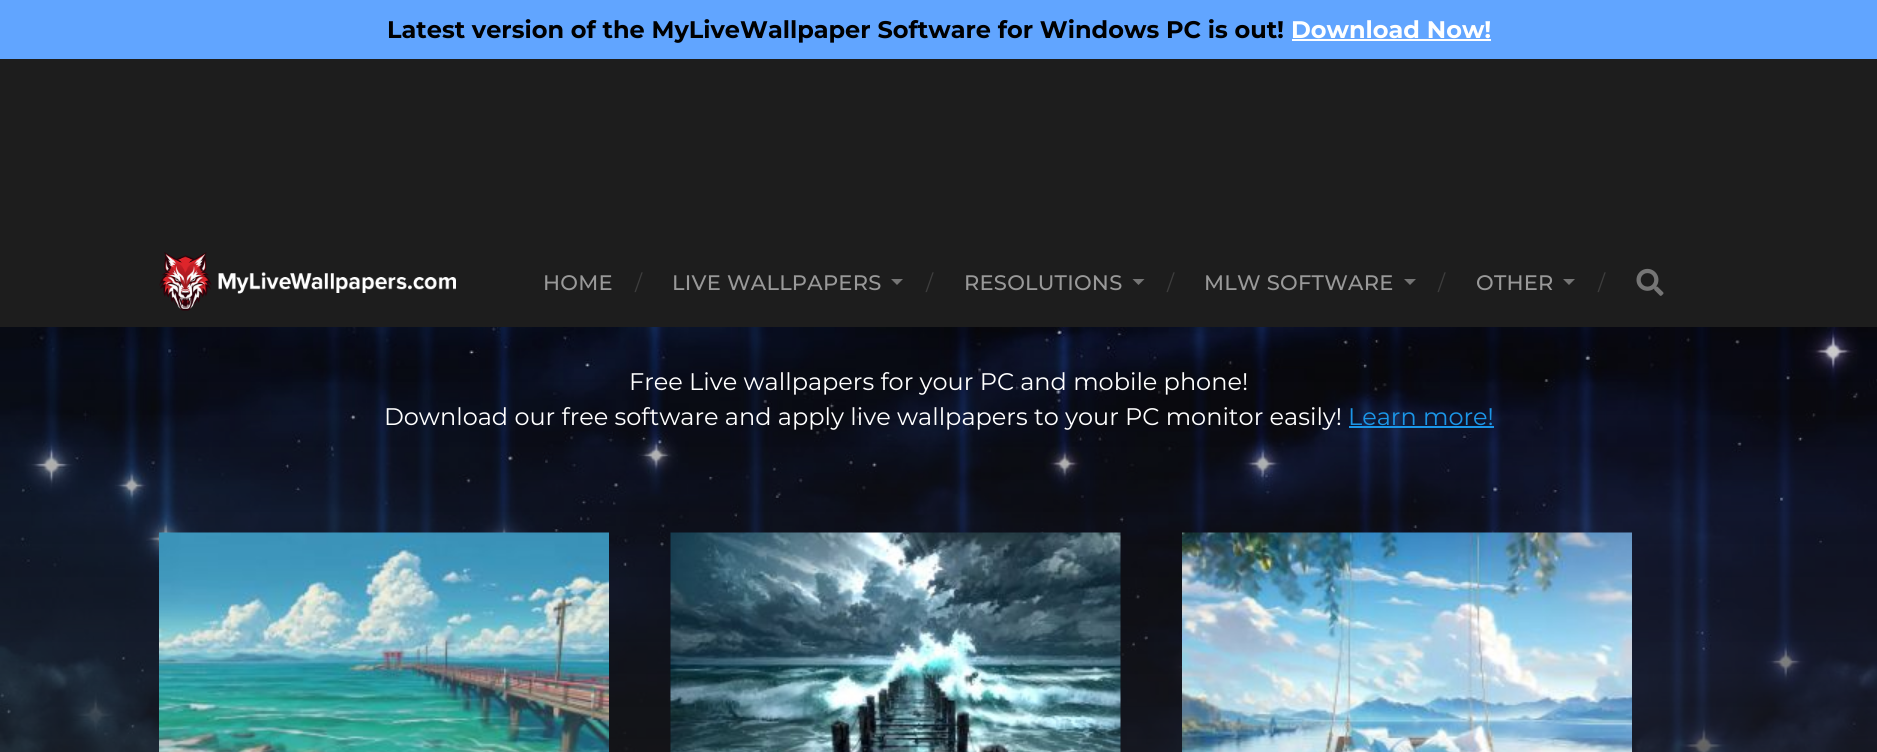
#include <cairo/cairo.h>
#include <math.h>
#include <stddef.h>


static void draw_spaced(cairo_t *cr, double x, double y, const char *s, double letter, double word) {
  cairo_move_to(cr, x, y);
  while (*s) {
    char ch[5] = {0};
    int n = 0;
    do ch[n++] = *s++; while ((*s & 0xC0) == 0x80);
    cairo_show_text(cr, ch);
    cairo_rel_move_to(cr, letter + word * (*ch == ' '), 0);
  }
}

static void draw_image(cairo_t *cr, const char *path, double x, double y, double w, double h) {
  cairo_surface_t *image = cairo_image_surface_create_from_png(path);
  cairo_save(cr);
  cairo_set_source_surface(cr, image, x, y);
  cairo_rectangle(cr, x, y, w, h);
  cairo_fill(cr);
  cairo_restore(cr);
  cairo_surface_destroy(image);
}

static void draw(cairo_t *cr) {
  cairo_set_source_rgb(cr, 29 / 255.0, 29 / 255.0, 29 / 255.0);
  cairo_paint(cr);
  cairo_set_source_rgb(cr, 97 / 255.0, 165 / 255.0, 1);
  cairo_rectangle(cr, 0, 0, 1877, 59);
  cairo_fill(cr);
  cairo_set_source_rgb(cr, 1, 1, 1);
  cairo_rectangle(cr, 1292, 39, 199, 2);
  cairo_fill(cr);
  draw_image(cr, "images/1.png", 159, 252, 297, 59);
  cairo_set_source_rgb(cr, 117 / 255.0, 117 / 255.0, 117 / 255.0);
  cairo_new_path(cr);
  cairo_move_to(cr, 891, 279);
  cairo_line_to(cr, 903, 279);
  cairo_line_to(cr, 897, 285);
  cairo_close_path(cr);
  cairo_fill(cr);
  cairo_new_path(cr);
  cairo_move_to(cr, 1132.5, 279);
  cairo_line_to(cr, 1144.5, 279);
  cairo_line_to(cr, 1138.5, 285);
  cairo_close_path(cr);
  cairo_fill(cr);
  cairo_new_path(cr);
  cairo_move_to(cr, 1404, 279);
  cairo_line_to(cr, 1416, 279);
  cairo_line_to(cr, 1410, 285);
  cairo_close_path(cr);
  cairo_fill(cr);
  cairo_new_path(cr);
  cairo_move_to(cr, 1563, 279);
  cairo_line_to(cr, 1575, 279);
  cairo_line_to(cr, 1569, 285);
  cairo_close_path(cr);
  cairo_fill(cr);
  draw_image(cr, "images/2.png", 1636, 268, 28, 28);
  draw_image(cr, "images/3.png", 0, 327, 1877, 425);
  cairo_set_source_rgb(cr, 27 / 255.0, 150 / 255.0, 232 / 255.0);
  cairo_rectangle(cr, 1349, 426, 145, 2);
  cairo_fill(cr);
  draw_image(cr, "images/4.png", 159, 532, 450, 220);
  draw_image(cr, "images/5.png", 670, 532, 451, 220);
  draw_image(cr, "images/6.png", 1182, 532, 450, 220);
  cairo_select_font_face(cr, "Montserrat", CAIRO_FONT_SLANT_NORMAL, CAIRO_FONT_WEIGHT_BOLD);
  cairo_set_font_size(cr, 24);
  cairo_set_source_rgb(cr, 0, 0, 0);
  cairo_move_to(cr, 387, 38);
  cairo_show_text(cr, "Latest version of the MyLiveWallpaper Software for Windows PC is out!");
  cairo_set_source_rgb(cr, 1, 1, 1);
  cairo_move_to(cr, 1291, 38);
  cairo_show_text(cr, "Download Now!");
  cairo_select_font_face(cr, "Montserrat Medium", CAIRO_FONT_SLANT_NORMAL, CAIRO_FONT_WEIGHT_NORMAL);
  cairo_set_font_size(cr, 21);
  cairo_set_source_rgb(cr, 153 / 255.0, 153 / 255.0, 153 / 255.0);
  draw_spaced(cr, 543, 290, "HOME", 0.25, 0);
  cairo_select_font_face(cr, "Montserrat", CAIRO_FONT_SLANT_NORMAL, CAIRO_FONT_WEIGHT_NORMAL);
  cairo_set_source_rgb(cr, 61 / 255.0, 61 / 255.0, 61 / 255.0);
  cairo_move_to(cr, 635, 290);
  cairo_show_text(cr, "/");
  cairo_select_font_face(cr, "Montserrat Medium", CAIRO_FONT_SLANT_NORMAL, CAIRO_FONT_WEIGHT_NORMAL);
  cairo_set_source_rgb(cr, 153 / 255.0, 153 / 255.0, 153 / 255.0);
  draw_spaced(cr, 672, 290, "LIVE WALLPAPERS", 0.25, 0);
  cairo_select_font_face(cr, "Montserrat", CAIRO_FONT_SLANT_NORMAL, CAIRO_FONT_WEIGHT_NORMAL);
  cairo_set_source_rgb(cr, 61 / 255.0, 61 / 255.0, 61 / 255.0);
  cairo_move_to(cr, 926, 290);
  cairo_show_text(cr, "/");
  cairo_select_font_face(cr, "Montserrat Medium", CAIRO_FONT_SLANT_NORMAL, CAIRO_FONT_WEIGHT_NORMAL);
  cairo_set_source_rgb(cr, 153 / 255.0, 153 / 255.0, 153 / 255.0);
  draw_spaced(cr, 964, 290, "RESOLUTIONS", 0.25, 0);
  cairo_select_font_face(cr, "Montserrat", CAIRO_FONT_SLANT_NORMAL, CAIRO_FONT_WEIGHT_NORMAL);
  cairo_set_source_rgb(cr, 61 / 255.0, 61 / 255.0, 61 / 255.0);
  cairo_move_to(cr, 1167, 290);
  cairo_show_text(cr, "/");
  cairo_select_font_face(cr, "Montserrat Medium", CAIRO_FONT_SLANT_NORMAL, CAIRO_FONT_WEIGHT_NORMAL);
  cairo_set_source_rgb(cr, 153 / 255.0, 153 / 255.0, 153 / 255.0);
  draw_spaced(cr, 1204, 290, "MLW SOFTWARE", 0.25, 0);
  cairo_select_font_face(cr, "Montserrat", CAIRO_FONT_SLANT_NORMAL, CAIRO_FONT_WEIGHT_NORMAL);
  cairo_set_source_rgb(cr, 61 / 255.0, 61 / 255.0, 61 / 255.0);
  cairo_move_to(cr, 1438, 290);
  cairo_show_text(cr, "/");
  cairo_select_font_face(cr, "Montserrat Medium", CAIRO_FONT_SLANT_NORMAL, CAIRO_FONT_WEIGHT_NORMAL);
  cairo_set_source_rgb(cr, 153 / 255.0, 153 / 255.0, 153 / 255.0);
  draw_spaced(cr, 1476, 290, "OTHER", 0.25, 0);
  cairo_select_font_face(cr, "Montserrat", CAIRO_FONT_SLANT_NORMAL, CAIRO_FONT_WEIGHT_NORMAL);
  cairo_set_source_rgb(cr, 61 / 255.0, 61 / 255.0, 61 / 255.0);
  cairo_move_to(cr, 1598, 290);
  cairo_show_text(cr, "/");
  cairo_set_font_size(cr, 24);
  cairo_set_source_rgb(cr, 1, 1, 1);
  cairo_move_to(cr, 629, 390);
  cairo_show_text(cr, "Free Live wallpapers for your PC and mobile phone!");
  cairo_move_to(cr, 384, 425);
  cairo_show_text(cr, "Download our free software and apply live wallpapers to your PC monitor easily!");
  cairo_set_source_rgb(cr, 27 / 255.0, 150 / 255.0, 232 / 255.0);
  cairo_move_to(cr, 1348, 425);
  cairo_show_text(cr, "Learn more!");
}

int main(void) {
  cairo_surface_t *surface = cairo_image_surface_create(CAIRO_FORMAT_RGB24, 1877, 752);
  cairo_t *cr = cairo_create(surface);
  cairo_font_options_t *options = cairo_font_options_create();
  cairo_font_options_set_hint_metrics(options, CAIRO_HINT_METRICS_OFF);
  cairo_font_options_set_hint_style(options, CAIRO_HINT_STYLE_NONE);
  cairo_set_font_options(cr, options);
  cairo_set_miter_limit(cr, 4);
  draw(cr);
  cairo_surface_write_to_png(surface, "out.png");
  cairo_font_options_destroy(options);
  cairo_destroy(cr);
  cairo_surface_destroy(surface);
  return 0;
}
